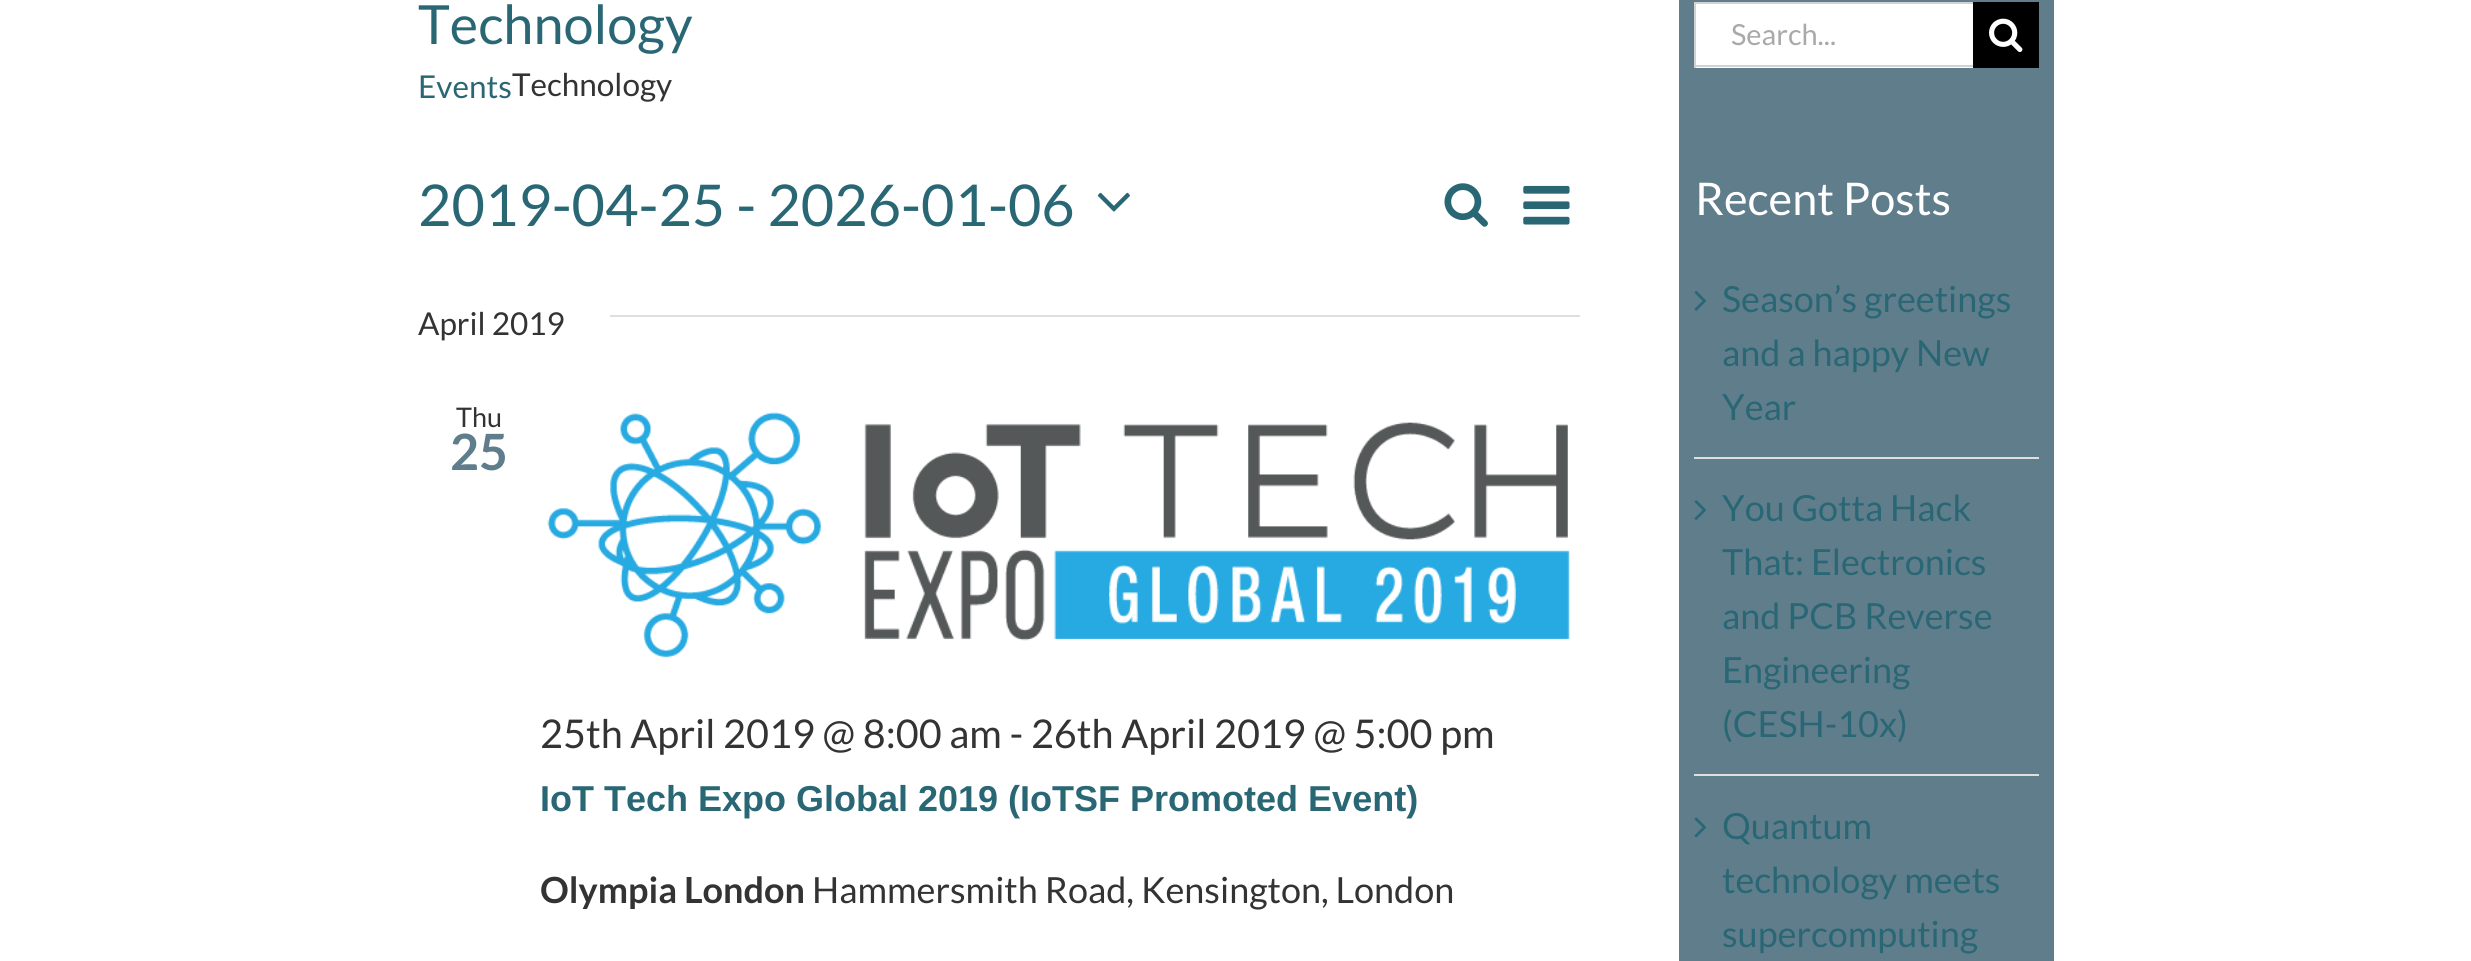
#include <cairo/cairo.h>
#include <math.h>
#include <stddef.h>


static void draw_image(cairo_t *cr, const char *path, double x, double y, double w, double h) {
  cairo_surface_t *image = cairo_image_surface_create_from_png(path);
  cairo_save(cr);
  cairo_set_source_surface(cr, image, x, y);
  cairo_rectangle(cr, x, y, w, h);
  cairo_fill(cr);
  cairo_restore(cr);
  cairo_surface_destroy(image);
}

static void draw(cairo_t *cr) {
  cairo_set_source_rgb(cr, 1, 1, 1);
  cairo_paint(cr);
  draw_image(cr, "images/1.png", 1097, 192, 33, 20);
  draw_image(cr, "images/2.png", 1444, 183, 44, 44);
  draw_image(cr, "images/3.png", 1523, 185, 47, 40);
  cairo_set_source_rgb(cr, 224 / 255.0, 222 / 255.0, 222 / 255.0);
  cairo_rectangle(cr, 610, 315, 970, 2);
  cairo_fill(cr);
  draw_image(cr, "images/4.png", 547, 412, 1023, 246);
  cairo_set_source_rgb(cr, 96 / 255.0, 125 / 255.0, 139 / 255.0);
  cairo_rectangle(cr, 1679, 0, 375, 961);
  cairo_fill(cr);
  cairo_set_source_rgb(cr, 1, 1, 1);
  cairo_rectangle(cr, 1696, 4, 277, 64);
  cairo_fill(cr);
  cairo_set_source_rgb(cr, 210 / 255.0, 210 / 255.0, 210 / 255.0);
  cairo_rectangle(cr, 1694, 2, 279, 2);
  cairo_fill(cr);
  cairo_rectangle(cr, 1694, 65, 279, 2);
  cairo_fill(cr);
  cairo_rectangle(cr, 1694, 2, 2, 66);
  cairo_fill(cr);
  cairo_set_source_rgb(cr, 0, 0, 0);
  cairo_rectangle(cr, 1973, 2, 66, 66);
  cairo_fill(cr);
  draw_image(cr, "images/5.png", 1989, 18, 34, 34);
  cairo_set_source_rgb(cr, 224 / 255.0, 222 / 255.0, 222 / 255.0);
  cairo_rectangle(cr, 1694, 457, 345, 2);
  cairo_fill(cr);
  draw_image(cr, "images/6.png", 1694, 291, 12, 20);
  cairo_rectangle(cr, 1694, 774, 345, 2);
  cairo_fill(cr);
  draw_image(cr, "images/7.png", 1694, 500, 12, 20);
  draw_image(cr, "images/8.png", 1694, 817, 13, 21);
  cairo_select_font_face(cr, "Lato", CAIRO_FONT_SLANT_NORMAL, CAIRO_FONT_WEIGHT_NORMAL);
  cairo_set_font_size(cr, 54);
  cairo_set_source_rgb(cr, 41 / 255.0, 103 / 255.0, 117 / 255.0);
  cairo_move_to(cr, 418, 44);
  cairo_show_text(cr, "Technology");
  cairo_set_font_size(cr, 31.5);
  cairo_move_to(cr, 418, 98);
  cairo_show_text(cr, "Events");
  cairo_set_source_rgb(cr, 51 / 255.0, 51 / 255.0, 51 / 255.0);
  cairo_move_to(cr, 512, 96);
  cairo_show_text(cr, "Technology");
  cairo_set_font_size(cr, 57.6);
  cairo_set_source_rgb(cr, 41 / 255.0, 103 / 255.0, 117 / 255.0);
  cairo_move_to(cr, 418, 226);
  cairo_show_text(cr, "2019-04-25 - 2026-01-06");
  cairo_set_font_size(cr, 31.5);
  cairo_set_source_rgb(cr, 51 / 255.0, 51 / 255.0, 51 / 255.0);
  cairo_move_to(cr, 418, 335);
  cairo_show_text(cr, "April 2019");
  cairo_set_font_size(cr, 27);
  cairo_move_to(cr, 456, 427);
  cairo_show_text(cr, "Thu");
  cairo_select_font_face(cr, "Lato", CAIRO_FONT_SLANT_NORMAL, CAIRO_FONT_WEIGHT_BOLD);
  cairo_set_font_size(cr, 50);
  cairo_set_source_rgb(cr, 96 / 255.0, 125 / 255.0, 139 / 255.0);
  cairo_move_to(cr, 450, 470);
  cairo_show_text(cr, "25");
  cairo_select_font_face(cr, "Lato", CAIRO_FONT_SLANT_NORMAL, CAIRO_FONT_WEIGHT_NORMAL);
  cairo_set_font_size(cr, 39.6);
  cairo_set_source_rgb(cr, 51 / 255.0, 51 / 255.0, 51 / 255.0);
  cairo_move_to(cr, 540, 748);
  cairo_show_text(cr, "25th April 2019 @ 8:00 am - 26th April 2019 @ 5:00 pm");
  cairo_select_font_face(cr, "Liberation Sans", CAIRO_FONT_SLANT_NORMAL, CAIRO_FONT_WEIGHT_BOLD);
  cairo_set_font_size(cr, 36);
  cairo_set_source_rgb(cr, 41 / 255.0, 103 / 255.0, 117 / 255.0);
  cairo_move_to(cr, 540, 811);
  cairo_show_text(cr, "IoT Tech Expo Global 2019 (IoTSF Promoted Event)");
  cairo_select_font_face(cr, "Lato", CAIRO_FONT_SLANT_NORMAL, CAIRO_FONT_WEIGHT_BOLD);
  cairo_set_source_rgb(cr, 51 / 255.0, 51 / 255.0, 51 / 255.0);
  cairo_move_to(cr, 540, 903);
  cairo_show_text(cr, "Olympia London");
  cairo_select_font_face(cr, "Lato", CAIRO_FONT_SLANT_NORMAL, CAIRO_FONT_WEIGHT_NORMAL);
  cairo_move_to(cr, 812, 903);
  cairo_show_text(cr, "Hammersmith Road, Kensington, London");
  cairo_set_font_size(cr, 29);
  cairo_set_source_rgb(cr, 170 / 255.0, 169 / 255.0, 169 / 255.0);
  cairo_move_to(cr, 1731, 45);
  cairo_show_text(cr, "Search...");
  cairo_set_font_size(cr, 45);
  cairo_set_source_rgb(cr, 1, 1, 1);
  cairo_move_to(cr, 1695, 215);
  cairo_show_text(cr, "Recent Posts");
  cairo_set_font_size(cr, 36);
  cairo_set_source_rgb(cr, 41 / 255.0, 103 / 255.0, 117 / 255.0);
  cairo_move_to(cr, 1722, 312);
  cairo_show_text(cr, "Season’s greetings");
  cairo_move_to(cr, 1722, 366);
  cairo_show_text(cr, "and a happy New");
  cairo_move_to(cr, 1722, 420);
  cairo_show_text(cr, "Year");
  cairo_move_to(cr, 1722, 521);
  cairo_show_text(cr, "You Gotta Hack");
  cairo_move_to(cr, 1722, 575);
  cairo_show_text(cr, "That: Electronics");
  cairo_move_to(cr, 1722, 629);
  cairo_show_text(cr, "and PCB Reverse");
  cairo_move_to(cr, 1722, 683);
  cairo_show_text(cr, "Engineering");
  cairo_move_to(cr, 1722, 737);
  cairo_show_text(cr, "(CESH-10x)");
  cairo_move_to(cr, 1722, 839);
  cairo_show_text(cr, "Quantum");
  cairo_move_to(cr, 1722, 893);
  cairo_show_text(cr, "technology meets");
  cairo_move_to(cr, 1722, 947);
  cairo_show_text(cr, "supercomputing");
}

int main(void) {
  cairo_surface_t *surface = cairo_image_surface_create(CAIRO_FORMAT_RGB24, 2471, 961);
  cairo_t *cr = cairo_create(surface);
  cairo_font_options_t *options = cairo_font_options_create();
  cairo_font_options_set_hint_metrics(options, CAIRO_HINT_METRICS_OFF);
  cairo_font_options_set_hint_style(options, CAIRO_HINT_STYLE_NONE);
  cairo_set_font_options(cr, options);
  cairo_set_miter_limit(cr, 4);
  draw(cr);
  cairo_surface_write_to_png(surface, "out.png");
  cairo_font_options_destroy(options);
  cairo_destroy(cr);
  cairo_surface_destroy(surface);
  return 0;
}
